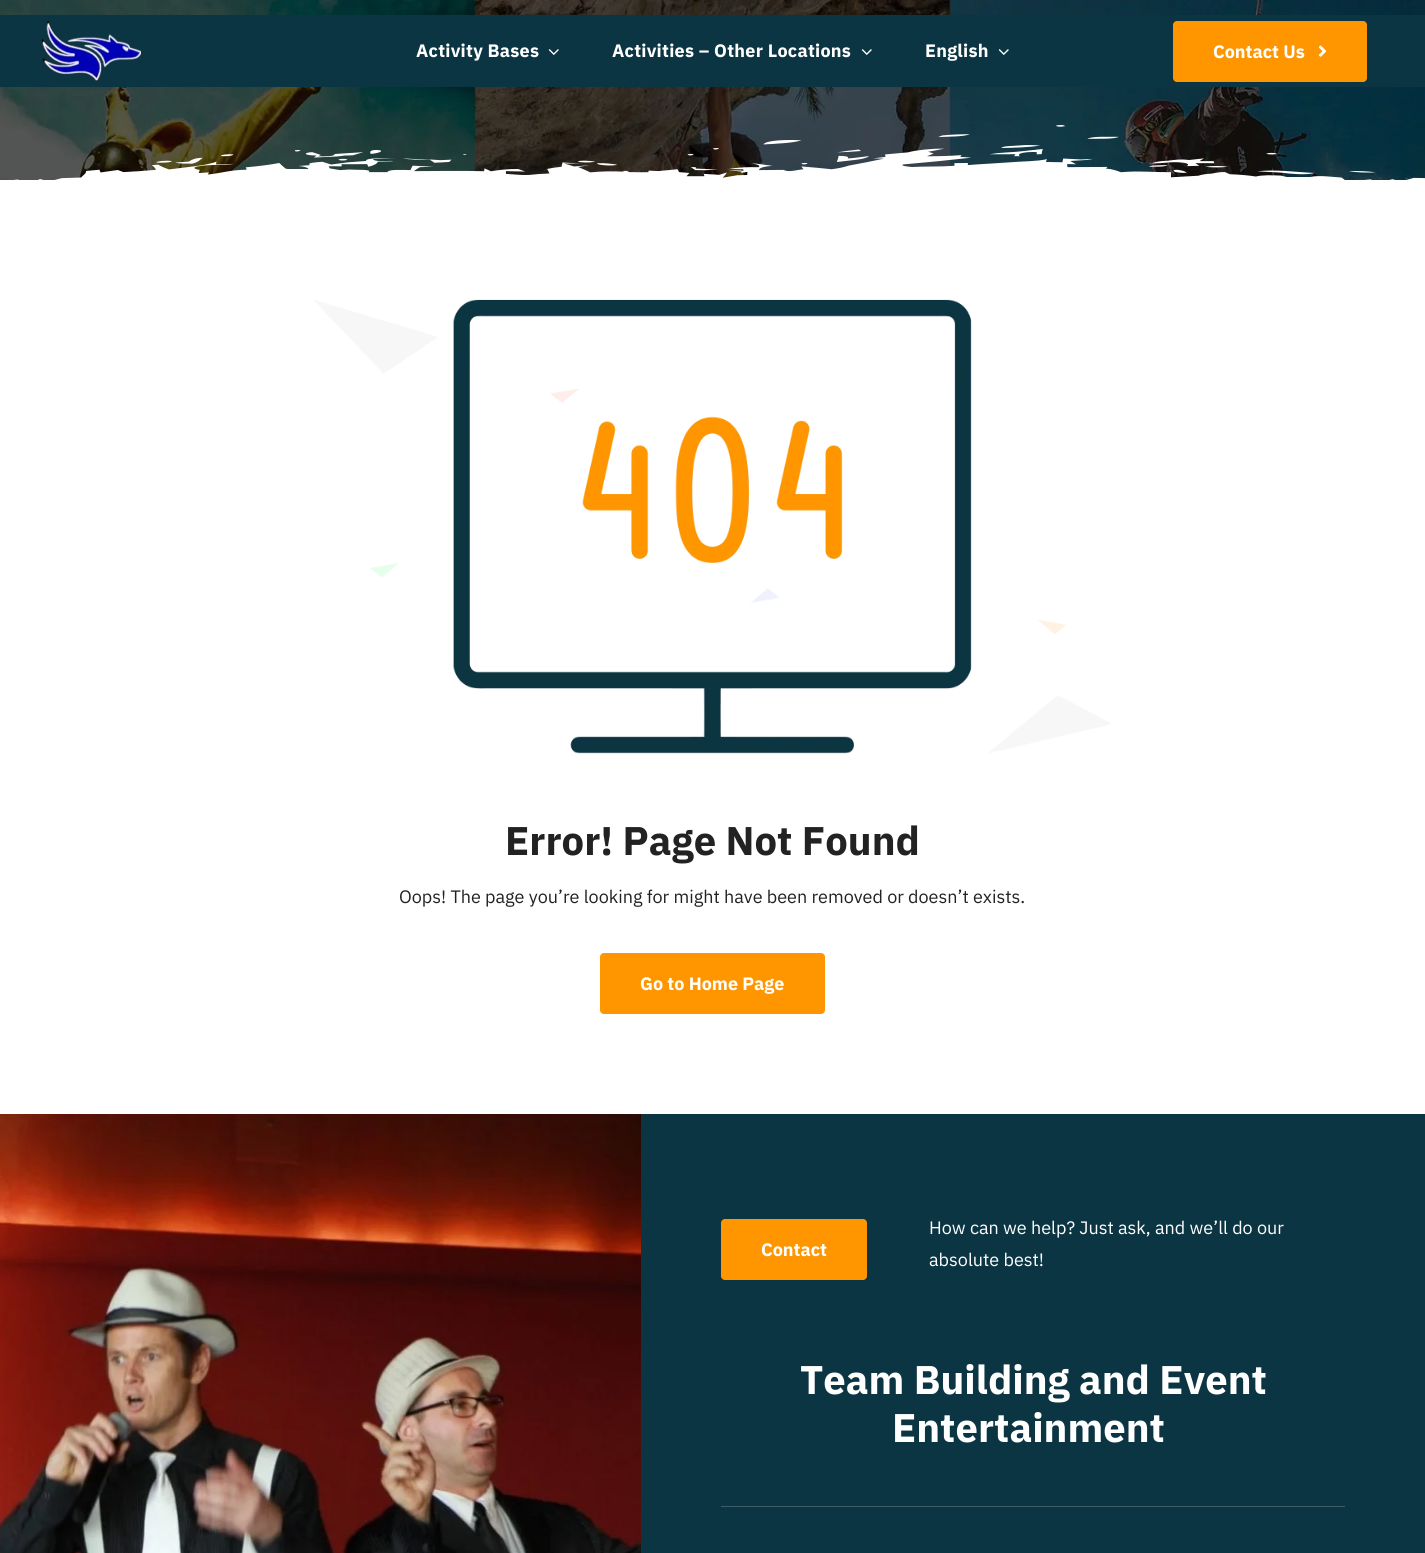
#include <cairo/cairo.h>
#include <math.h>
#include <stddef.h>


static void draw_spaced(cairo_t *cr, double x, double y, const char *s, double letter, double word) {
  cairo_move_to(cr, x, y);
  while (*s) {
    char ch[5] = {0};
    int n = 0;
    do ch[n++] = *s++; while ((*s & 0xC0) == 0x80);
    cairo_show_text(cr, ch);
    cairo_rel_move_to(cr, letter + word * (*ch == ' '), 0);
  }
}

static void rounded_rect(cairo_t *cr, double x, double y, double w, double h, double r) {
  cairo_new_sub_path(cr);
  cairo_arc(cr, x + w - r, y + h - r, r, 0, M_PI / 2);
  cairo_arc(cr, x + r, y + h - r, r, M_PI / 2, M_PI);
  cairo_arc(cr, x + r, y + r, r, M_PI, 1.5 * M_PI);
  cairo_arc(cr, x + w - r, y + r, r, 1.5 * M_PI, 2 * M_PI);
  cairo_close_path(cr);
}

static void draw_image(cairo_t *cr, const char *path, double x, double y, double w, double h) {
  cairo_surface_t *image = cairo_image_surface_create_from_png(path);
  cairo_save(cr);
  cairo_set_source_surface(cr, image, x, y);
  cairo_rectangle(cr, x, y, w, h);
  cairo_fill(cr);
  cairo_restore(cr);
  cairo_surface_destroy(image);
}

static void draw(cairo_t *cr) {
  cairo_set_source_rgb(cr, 1, 1, 1);
  cairo_paint(cr);
  draw_image(cr, "images/1.png", 0, 0, 1425, 180);
  draw_image(cr, "images/2.png", 13, 125, 1412, 55);
  cairo_set_source_rgb(cr, 12 / 255.0, 53 / 255.0, 67 / 255.0);
  cairo_rectangle(cr, 0, 15, 1425, 72);
  cairo_fill(cr);
  draw_image(cr, "images/3.png", 42, 21, 99, 60);
  draw_image(cr, "images/4.png", 548, 49, 11, 6);
  draw_image(cr, "images/4.png", 861, 49, 11, 6);
  draw_image(cr, "images/4.png", 998, 49, 11, 6);
  cairo_set_source_rgb(cr, 1, 150 / 255.0, 0);
  rounded_rect(cr, 1173, 21, 194, 61, 4);
  cairo_fill(cr);
  draw_image(cr, "images/5.png", 1318, 45, 9, 12);
  draw_image(cr, "images/6.png", 314, 299, 797, 455);
  rounded_rect(cr, 600, 953, 225, 61, 4);
  cairo_fill(cr);
  cairo_set_source_rgb(cr, 12 / 255.0, 53 / 255.0, 67 / 255.0);
  cairo_rectangle(cr, 641, 1114, 784, 439);
  cairo_fill(cr);
  draw_image(cr, "images/7.png", 0, 1114, 641, 439);
  cairo_set_source_rgb(cr, 1, 150 / 255.0, 0);
  rounded_rect(cr, 721, 1219, 146, 61, 4);
  cairo_fill(cr);
  cairo_set_source_rgb(cr, 61 / 255.0, 93 / 255.0, 105 / 255.0);
  cairo_rectangle(cr, 721, 1506, 624, 1);
  cairo_fill(cr);
  cairo_select_font_face(cr, "IBM Plex Sans", CAIRO_FONT_SLANT_NORMAL, CAIRO_FONT_WEIGHT_BOLD);
  cairo_set_font_size(cr, 18);
  cairo_set_source_rgb(cr, 1, 1, 1);
  draw_spaced(cr, 416, 57, "Activity Bases", 0.25, 0);
  draw_spaced(cr, 612, 57, "Activities – Other Locations", 0.25, 0);
  draw_spaced(cr, 925, 57, "English", 0.25, 0);
  cairo_move_to(cr, 1213, 58);
  cairo_show_text(cr, "Contact Us");
  cairo_set_font_size(cr, 40);
  cairo_set_source_rgb(cr, 34 / 255.0, 34 / 255.0, 34 / 255.0);
  cairo_move_to(cr, 505, 855);
  cairo_show_text(cr, "Error! Page Not Found");
  cairo_select_font_face(cr, "IBM Plex Sans", CAIRO_FONT_SLANT_NORMAL, CAIRO_FONT_WEIGHT_NORMAL);
  cairo_set_font_size(cr, 18);
  cairo_move_to(cr, 399, 903);
  cairo_show_text(cr, "Oops! The page you’re looking for might have been removed or doesn’t exists.");
  cairo_select_font_face(cr, "IBM Plex Sans", CAIRO_FONT_SLANT_NORMAL, CAIRO_FONT_WEIGHT_BOLD);
  cairo_set_source_rgb(cr, 1, 1, 1);
  cairo_move_to(cr, 640, 990);
  cairo_show_text(cr, "Go to Home Page");
  cairo_move_to(cr, 761, 1256);
  cairo_show_text(cr, "Contact");
  cairo_select_font_face(cr, "IBM Plex Sans", CAIRO_FONT_SLANT_NORMAL, CAIRO_FONT_WEIGHT_NORMAL);
  cairo_move_to(cr, 929, 1234);
  cairo_show_text(cr, "How can we help? Just ask, and we’ll do our");
  cairo_move_to(cr, 929, 1266);
  cairo_show_text(cr, "absolute best!");
  cairo_select_font_face(cr, "IBM Plex Sans", CAIRO_FONT_SLANT_NORMAL, CAIRO_FONT_WEIGHT_BOLD);
  cairo_set_font_size(cr, 40);
  cairo_move_to(cr, 800, 1394);
  cairo_show_text(cr, "Team Building and Event");
  cairo_move_to(cr, 892, 1442);
  cairo_show_text(cr, "Entertainment");
}

int main(void) {
  cairo_surface_t *surface = cairo_image_surface_create(CAIRO_FORMAT_RGB24, 1425, 1553);
  cairo_t *cr = cairo_create(surface);
  cairo_font_options_t *options = cairo_font_options_create();
  cairo_font_options_set_hint_metrics(options, CAIRO_HINT_METRICS_OFF);
  cairo_font_options_set_hint_style(options, CAIRO_HINT_STYLE_NONE);
  cairo_set_font_options(cr, options);
  cairo_set_miter_limit(cr, 4);
  draw(cr);
  cairo_surface_write_to_png(surface, "out.png");
  cairo_font_options_destroy(options);
  cairo_destroy(cr);
  cairo_surface_destroy(surface);
  return 0;
}
